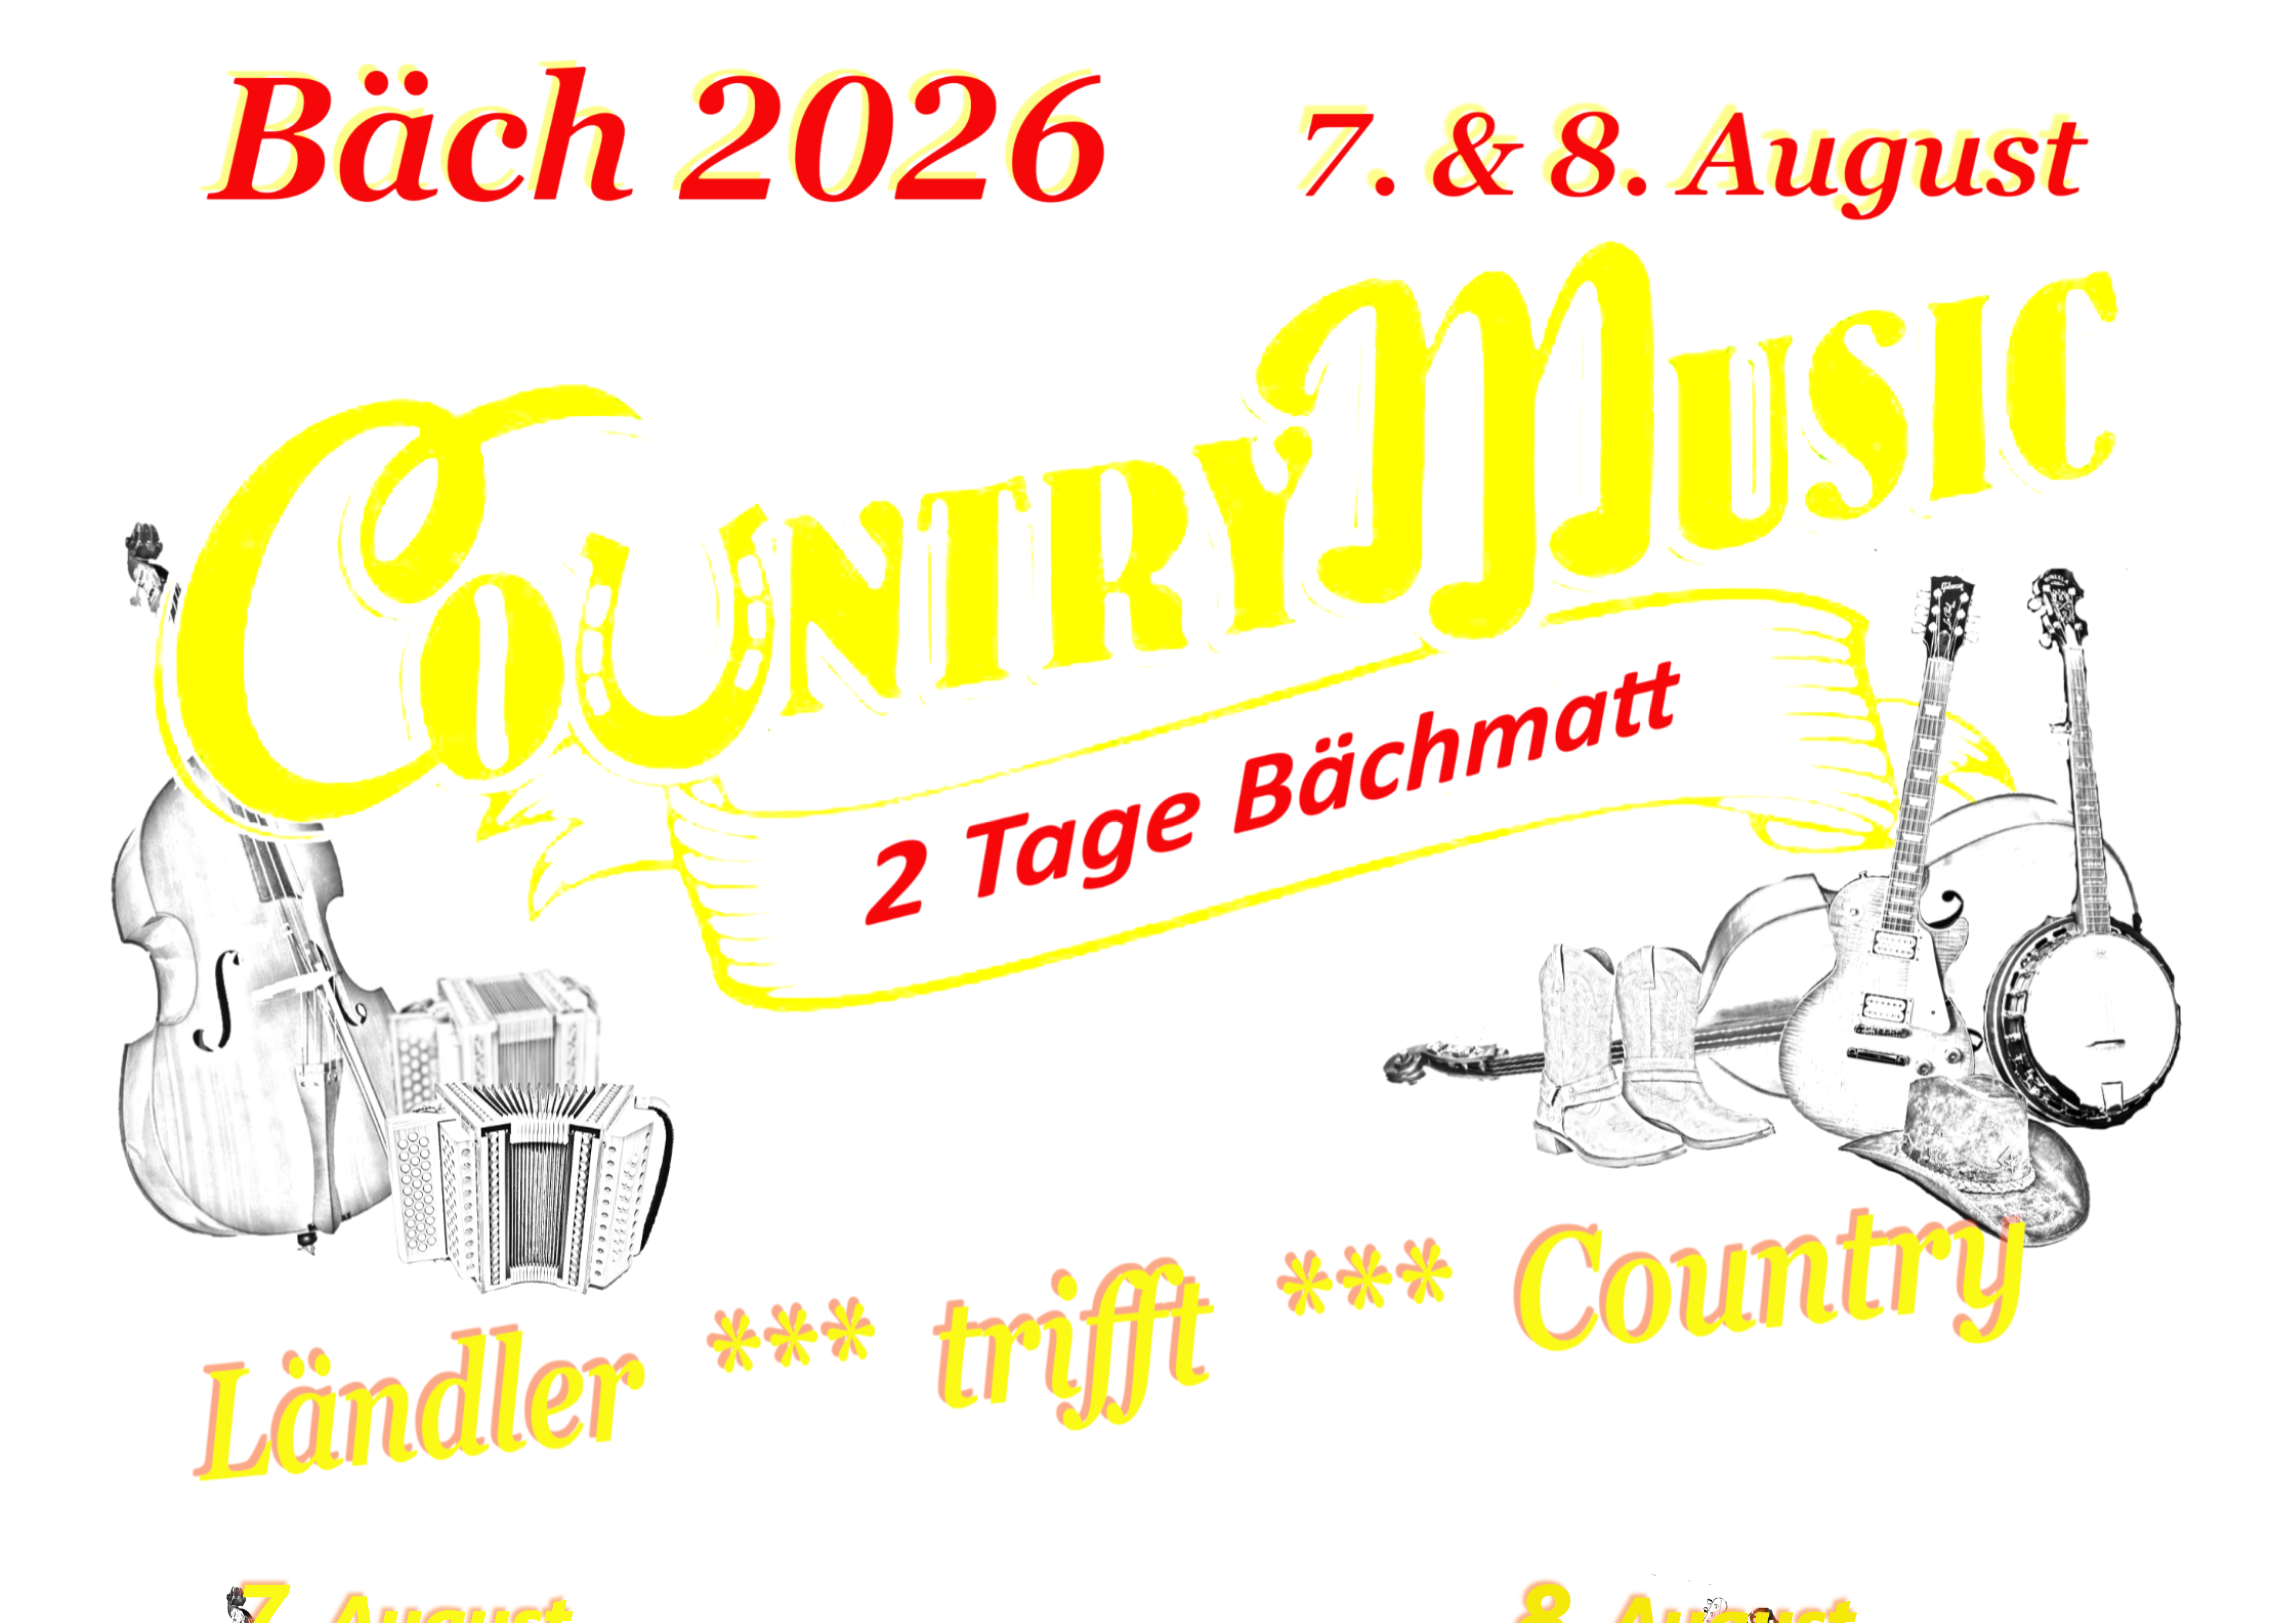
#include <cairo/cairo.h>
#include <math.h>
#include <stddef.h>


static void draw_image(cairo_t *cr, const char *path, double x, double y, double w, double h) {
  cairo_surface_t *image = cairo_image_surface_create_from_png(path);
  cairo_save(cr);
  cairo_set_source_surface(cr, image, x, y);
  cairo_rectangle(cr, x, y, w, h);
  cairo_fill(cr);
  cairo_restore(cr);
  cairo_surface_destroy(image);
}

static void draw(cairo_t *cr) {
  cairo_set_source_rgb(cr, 1, 1, 1);
  cairo_paint(cr);
  draw_image(cr, "images/1.png", 110, 59, 2072, 1423);
  draw_image(cr, "images/2.png", 226, 1578, 347, 45);
  draw_image(cr, "images/3.png", 1511, 1574, 346, 49);
}

int main(void) {
  cairo_surface_t *surface = cairo_image_surface_create(CAIRO_FORMAT_RGB24, 2277, 1623);
  cairo_t *cr = cairo_create(surface);
  cairo_font_options_t *options = cairo_font_options_create();
  cairo_font_options_set_hint_metrics(options, CAIRO_HINT_METRICS_OFF);
  cairo_font_options_set_hint_style(options, CAIRO_HINT_STYLE_NONE);
  cairo_set_font_options(cr, options);
  cairo_set_miter_limit(cr, 4);
  draw(cr);
  cairo_surface_write_to_png(surface, "out.png");
  cairo_font_options_destroy(options);
  cairo_destroy(cr);
  cairo_surface_destroy(surface);
  return 0;
}
